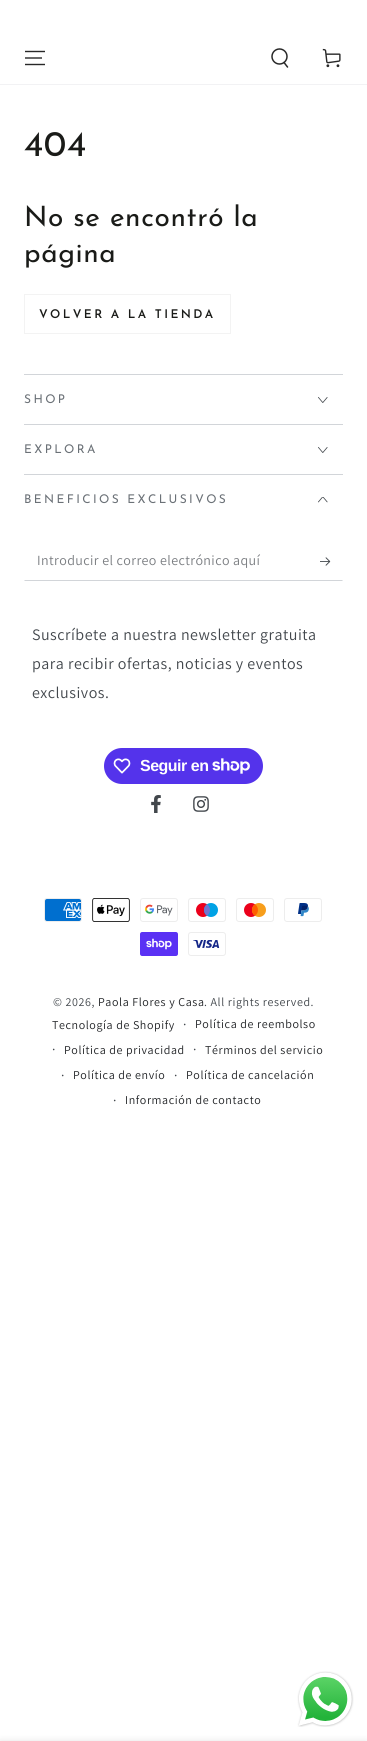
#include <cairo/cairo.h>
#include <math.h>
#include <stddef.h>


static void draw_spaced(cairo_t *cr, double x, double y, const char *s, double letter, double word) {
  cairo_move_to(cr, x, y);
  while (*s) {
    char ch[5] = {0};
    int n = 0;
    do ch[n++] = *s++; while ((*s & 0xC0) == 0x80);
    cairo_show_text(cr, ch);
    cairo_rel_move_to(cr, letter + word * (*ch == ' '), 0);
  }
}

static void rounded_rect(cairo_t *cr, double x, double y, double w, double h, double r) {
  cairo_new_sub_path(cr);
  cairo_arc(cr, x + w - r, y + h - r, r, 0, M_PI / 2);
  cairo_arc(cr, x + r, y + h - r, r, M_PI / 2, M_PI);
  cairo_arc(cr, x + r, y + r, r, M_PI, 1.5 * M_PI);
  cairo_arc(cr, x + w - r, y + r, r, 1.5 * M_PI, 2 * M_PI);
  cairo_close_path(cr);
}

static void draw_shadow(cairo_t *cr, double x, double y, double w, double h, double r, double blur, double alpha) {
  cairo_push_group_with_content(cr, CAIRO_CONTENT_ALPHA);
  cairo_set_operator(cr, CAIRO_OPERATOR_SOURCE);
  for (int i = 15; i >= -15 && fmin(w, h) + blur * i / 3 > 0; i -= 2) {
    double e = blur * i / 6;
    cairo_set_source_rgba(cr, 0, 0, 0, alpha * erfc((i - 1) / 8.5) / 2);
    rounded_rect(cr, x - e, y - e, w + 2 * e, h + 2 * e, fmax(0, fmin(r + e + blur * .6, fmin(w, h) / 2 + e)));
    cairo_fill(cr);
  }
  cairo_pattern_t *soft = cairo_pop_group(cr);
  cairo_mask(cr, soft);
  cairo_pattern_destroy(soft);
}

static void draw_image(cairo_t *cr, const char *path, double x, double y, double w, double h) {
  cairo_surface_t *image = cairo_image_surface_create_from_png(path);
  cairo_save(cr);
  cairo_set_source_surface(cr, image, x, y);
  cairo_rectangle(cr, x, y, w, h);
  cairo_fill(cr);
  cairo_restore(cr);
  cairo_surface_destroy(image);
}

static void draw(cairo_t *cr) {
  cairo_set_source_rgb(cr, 1, 1, 1);
  cairo_paint(cr);
  cairo_set_source_rgb(cr, 242 / 255.0, 242 / 255.0, 244 / 255.0);
  cairo_rectangle(cr, 0, 84, 367, 1);
  cairo_fill(cr);
  cairo_new_path(cr);
  cairo_move_to(cr, 25, 64.5);
  cairo_line_to(cr, 45, 64.5);
  cairo_move_to(cr, 25, 58);
  cairo_line_to(cr, 42, 58);
  cairo_move_to(cr, 25, 51.5);
  cairo_line_to(cr, 45, 51.5);
  cairo_set_source_rgb(cr, 40 / 255.0, 40 / 255.0, 40 / 255.0);
  cairo_set_line_width(cr, 1.4);
  cairo_stroke(cr);
  cairo_arc(cr, 279.5, 56.5, 7.5, 0, 2 * M_PI);
  cairo_set_line_width(cr, 1.5);
  cairo_stroke(cr);
  cairo_new_path(cr);
  cairo_move_to(cr, 284, 62.5);
  cairo_line_to(cr, 287.5, 67);
  cairo_set_line_cap(cr, CAIRO_LINE_CAP_ROUND);
  cairo_stroke(cr);
  draw_image(cr, "images/1.png", 322, 48, 19, 20);
  cairo_rectangle(cr, 24.5, 294.5, 206, 39);
  cairo_set_source_rgb(cr, 243 / 255.0, 243 / 255.0, 243 / 255.0);
  cairo_set_line_width(cr, 1);
  cairo_set_line_cap(cr, CAIRO_LINE_CAP_BUTT);
  cairo_stroke(cr);
  cairo_set_source_rgb(cr, 210 / 255.0, 213 / 255.0, 217 / 255.0);
  cairo_rectangle(cr, 24, 374, 319, 1);
  cairo_fill(cr);
  cairo_rectangle(cr, 24, 424, 319, 1);
  cairo_fill(cr);
  draw_image(cr, "images/2.png", 318, 397, 10, 6);
  cairo_rectangle(cr, 24, 474, 319, 1);
  cairo_fill(cr);
  draw_image(cr, "images/2.png", 318, 447, 10, 6);
  draw_image(cr, "images/3.png", 318, 497, 10, 6);
  cairo_new_path(cr);
  cairo_move_to(cr, 343, 581);
  cairo_line_to(cr, 24, 581);
  cairo_line_to(cr, 25, 580);
  cairo_line_to(cr, 342, 580);
  cairo_close_path(cr);
  cairo_fill(cr);
  draw_image(cr, "images/4.png", 320, 557, 11, 9);
  cairo_set_source_rgb(cr, 84 / 255.0, 51 / 255.0, 235 / 255.0);
  rounded_rect(cr, 104, 748, 159, 36, 18);
  cairo_fill(cr);
  draw_image(cr, "images/5.png", 113, 758, 18, 16);
  draw_image(cr, "images/6.png", 212, 758, 38, 16);
  draw_image(cr, "images/7.png", 151, 795, 10, 18);
  draw_image(cr, "images/8.png", 193, 796, 16, 16);
  draw_image(cr, "images/9.png", 44, 898, 38, 24);
  draw_image(cr, "images/10.png", 92, 898, 38, 24);
  draw_image(cr, "images/11.png", 140, 898, 38, 24);
  draw_image(cr, "images/12.png", 188, 898, 38, 24);
  draw_image(cr, "images/13.png", 236, 898, 38, 24);
  draw_image(cr, "images/14.png", 284, 898, 38, 24);
  draw_image(cr, "images/15.png", 140, 932, 38, 24);
  draw_image(cr, "images/16.png", 188, 932, 38, 24);
  draw_image(cr, "images/17.png", 297, 1671, 57, 56);
  cairo_set_source_rgb(cr, 33 / 255.0, 35 / 255.0, 38 / 255.0);
  draw_shadow(cr, 0, 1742, 367, 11, 0, 4, 0.15);
  cairo_select_font_face(cr, "Josefin Sans", CAIRO_FONT_SLANT_NORMAL, CAIRO_FONT_WEIGHT_NORMAL);
  cairo_set_font_size(cr, 36);
  cairo_set_source_rgb(cr, 26 / 255.0, 27 / 255.0, 24 / 255.0);
  draw_spaced(cr, 24, 156, "404", 0.6, 0);
  cairo_set_font_size(cr, 28);
  draw_spaced(cr, 24, 226, "No se encontró la", 0.6, 0);
  draw_spaced(cr, 24, 262, "página", 0.6, 0);
  cairo_select_font_face(cr, "Josefin Sans SemiBold", CAIRO_FONT_SLANT_NORMAL, CAIRO_FONT_WEIGHT_NORMAL);
  cairo_set_font_size(cr, 12);
  draw_spaced(cr, 39, 318, "VOLVER A LA TIENDA", 2.4, 0);
  cairo_select_font_face(cr, "Josefin Sans", CAIRO_FONT_SLANT_NORMAL, CAIRO_FONT_WEIGHT_NORMAL);
  cairo_set_source_rgb(cr, 107 / 255.0, 113 / 255.0, 119 / 255.0);
  draw_spaced(cr, 24, 403, "SHOP", 2.4, 0);
  draw_spaced(cr, 24, 453, "EXPLORA", 2.4, 0);
  draw_spaced(cr, 24, 503, "BENEFICIOS EXCLUSIVOS", 2.4, 0);
  cairo_select_font_face(cr, "Assistant", CAIRO_FONT_SLANT_NORMAL, CAIRO_FONT_WEIGHT_NORMAL);
  cairo_set_font_size(cr, 14);
  cairo_set_source_rgb(cr, 123 / 255.0, 126 / 255.0, 130 / 255.0);
  draw_spaced(cr, 37, 565, "Introducir el correo electrónico aquí", 0.4, 0);
  cairo_set_font_size(cr, 16);
  cairo_set_source_rgb(cr, 66 / 255.0, 71 / 255.0, 76 / 255.0);
  draw_spaced(cr, 32, 640, "Suscríbete a nuestra newsletter gratuita", 0.5, 0);
  draw_spaced(cr, 32, 669, "para recibir ofertas, noticias y eventos", 0.5, 0);
  draw_spaced(cr, 32, 698, "exclusivos.", 0.5, 0);
  cairo_select_font_face(cr, "Liberation Sans", CAIRO_FONT_SLANT_NORMAL, CAIRO_FONT_WEIGHT_BOLD);
  cairo_set_source_rgb(cr, 1, 1, 1);
  draw_spaced(cr, 140, 771, "Seguir en", -0.5, 0);
  cairo_select_font_face(cr, "Assistant", CAIRO_FONT_SLANT_NORMAL, CAIRO_FONT_WEIGHT_NORMAL);
  cairo_set_font_size(cr, 12);
  cairo_set_source_rgb(cr, 66 / 255.0, 71 / 255.0, 76 / 255.0);
  draw_spaced(cr, 53, 1006, "© 2026,", 0.6, 0);
  cairo_set_source_rgb(cr, 33 / 255.0, 35 / 255.0, 38 / 255.0);
  draw_spaced(cr, 98, 1006, "Paola Flores y Casa", 0.6, 0);
  cairo_set_source_rgb(cr, 66 / 255.0, 71 / 255.0, 76 / 255.0);
  draw_spaced(cr, 204, 1006, ". All rights reserved.", 0.6, 0);
  cairo_set_source_rgb(cr, 33 / 255.0, 35 / 255.0, 38 / 255.0);
  draw_spaced(cr, 52, 1029, "Tecnología de Shopify", 0.6, 0);
  cairo_set_font_size(cr, 14);
  cairo_set_source_rgb(cr, 66 / 255.0, 71 / 255.0, 76 / 255.0);
  draw_spaced(cr, 183, 1029, "·", 0.6, 0);
  cairo_set_font_size(cr, 12);
  cairo_set_source_rgb(cr, 33 / 255.0, 35 / 255.0, 38 / 255.0);
  draw_spaced(cr, 195, 1028, "Política de reembolso", 0.6, 0);
  cairo_set_font_size(cr, 14);
  cairo_set_source_rgb(cr, 66 / 255.0, 71 / 255.0, 76 / 255.0);
  draw_spaced(cr, 52, 1054, "·", 0.6, 0);
  cairo_set_font_size(cr, 12);
  cairo_set_source_rgb(cr, 33 / 255.0, 35 / 255.0, 38 / 255.0);
  draw_spaced(cr, 64, 1054, "Política de privacidad", 0.6, 0);
  cairo_set_font_size(cr, 14);
  cairo_set_source_rgb(cr, 66 / 255.0, 71 / 255.0, 76 / 255.0);
  draw_spaced(cr, 193, 1054, "·", 0.6, 0);
  cairo_set_font_size(cr, 12);
  cairo_set_source_rgb(cr, 33 / 255.0, 35 / 255.0, 38 / 255.0);
  draw_spaced(cr, 205, 1054, "Términos del servicio", 0.6, 0);
  cairo_set_font_size(cr, 14);
  cairo_set_source_rgb(cr, 66 / 255.0, 71 / 255.0, 76 / 255.0);
  draw_spaced(cr, 61, 1080, "·", 0.6, 0);
  cairo_set_font_size(cr, 12);
  cairo_set_source_rgb(cr, 33 / 255.0, 35 / 255.0, 38 / 255.0);
  draw_spaced(cr, 73, 1079, "Política de envío", 0.6, 0);
  cairo_set_font_size(cr, 14);
  cairo_set_source_rgb(cr, 66 / 255.0, 71 / 255.0, 76 / 255.0);
  draw_spaced(cr, 174, 1080, "·", 0.6, 0);
  cairo_set_font_size(cr, 12);
  cairo_set_source_rgb(cr, 33 / 255.0, 35 / 255.0, 38 / 255.0);
  draw_spaced(cr, 186, 1079, "Política de cancelación", 0.6, 0);
  cairo_set_font_size(cr, 14);
  cairo_set_source_rgb(cr, 66 / 255.0, 71 / 255.0, 76 / 255.0);
  draw_spaced(cr, 113, 1105, "·", 0.6, 0);
  cairo_set_font_size(cr, 12);
  cairo_set_source_rgb(cr, 33 / 255.0, 35 / 255.0, 38 / 255.0);
  draw_spaced(cr, 125, 1104, "Información de contacto", 0.6, 0);
}

int main(void) {
  cairo_surface_t *surface = cairo_image_surface_create(CAIRO_FORMAT_RGB24, 367, 1741);
  cairo_t *cr = cairo_create(surface);
  cairo_font_options_t *options = cairo_font_options_create();
  cairo_font_options_set_hint_metrics(options, CAIRO_HINT_METRICS_OFF);
  cairo_font_options_set_hint_style(options, CAIRO_HINT_STYLE_NONE);
  cairo_set_font_options(cr, options);
  cairo_set_miter_limit(cr, 4);
  draw(cr);
  cairo_surface_write_to_png(surface, "out.png");
  cairo_font_options_destroy(options);
  cairo_destroy(cr);
  cairo_surface_destroy(surface);
  return 0;
}
